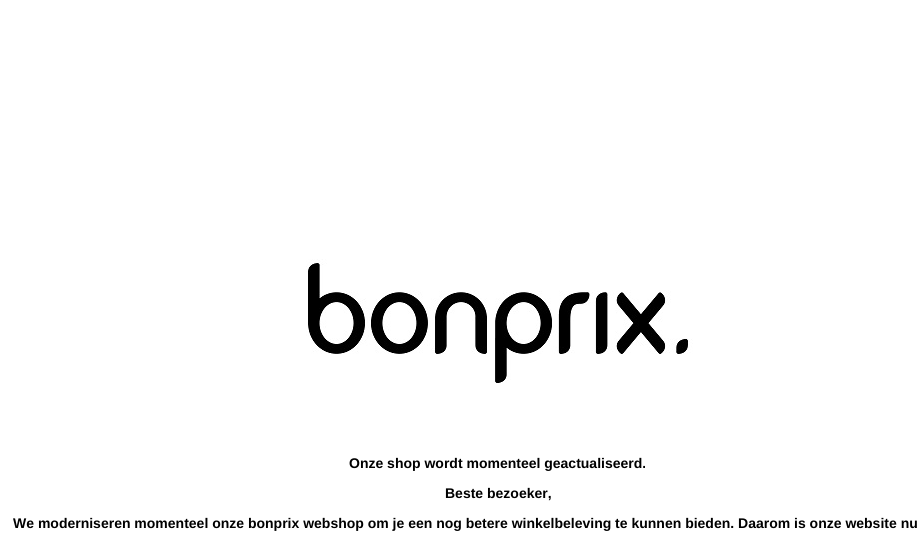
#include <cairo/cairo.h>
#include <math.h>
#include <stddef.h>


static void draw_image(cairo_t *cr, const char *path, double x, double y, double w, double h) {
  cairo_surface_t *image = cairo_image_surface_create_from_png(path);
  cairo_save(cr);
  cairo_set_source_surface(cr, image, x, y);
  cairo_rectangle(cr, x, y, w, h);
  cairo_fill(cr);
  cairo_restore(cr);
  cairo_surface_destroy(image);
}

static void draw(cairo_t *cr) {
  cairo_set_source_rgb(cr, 1, 1, 1);
  cairo_paint(cr);
  draw_image(cr, "images/1.png", 306, 259, 387, 124);
  cairo_select_font_face(cr, "Liberation Sans", CAIRO_FONT_SLANT_NORMAL, CAIRO_FONT_WEIGHT_BOLD);
  cairo_set_font_size(cr, 14);
  cairo_set_source_rgb(cr, 0, 0, 0);
  cairo_move_to(cr, 349, 468);
  cairo_show_text(cr, "Onze shop wordt momenteel geactualiseerd.");
  cairo_move_to(cr, 445, 498);
  cairo_show_text(cr, "Beste bezoeker,");
  cairo_move_to(cr, 13, 528);
  cairo_show_text(cr, "We moderniseren momenteel onze bonprix webshop om je een nog betere winkelbeleving te kunnen bieden. Daarom is onze website nu");
}

int main(void) {
  cairo_surface_t *surface = cairo_image_surface_create(CAIRO_FORMAT_RGB24, 919, 541);
  cairo_t *cr = cairo_create(surface);
  cairo_font_options_t *options = cairo_font_options_create();
  cairo_font_options_set_hint_metrics(options, CAIRO_HINT_METRICS_OFF);
  cairo_font_options_set_hint_style(options, CAIRO_HINT_STYLE_NONE);
  cairo_set_font_options(cr, options);
  cairo_set_miter_limit(cr, 4);
  draw(cr);
  cairo_surface_write_to_png(surface, "out.png");
  cairo_font_options_destroy(options);
  cairo_destroy(cr);
  cairo_surface_destroy(surface);
  return 0;
}
